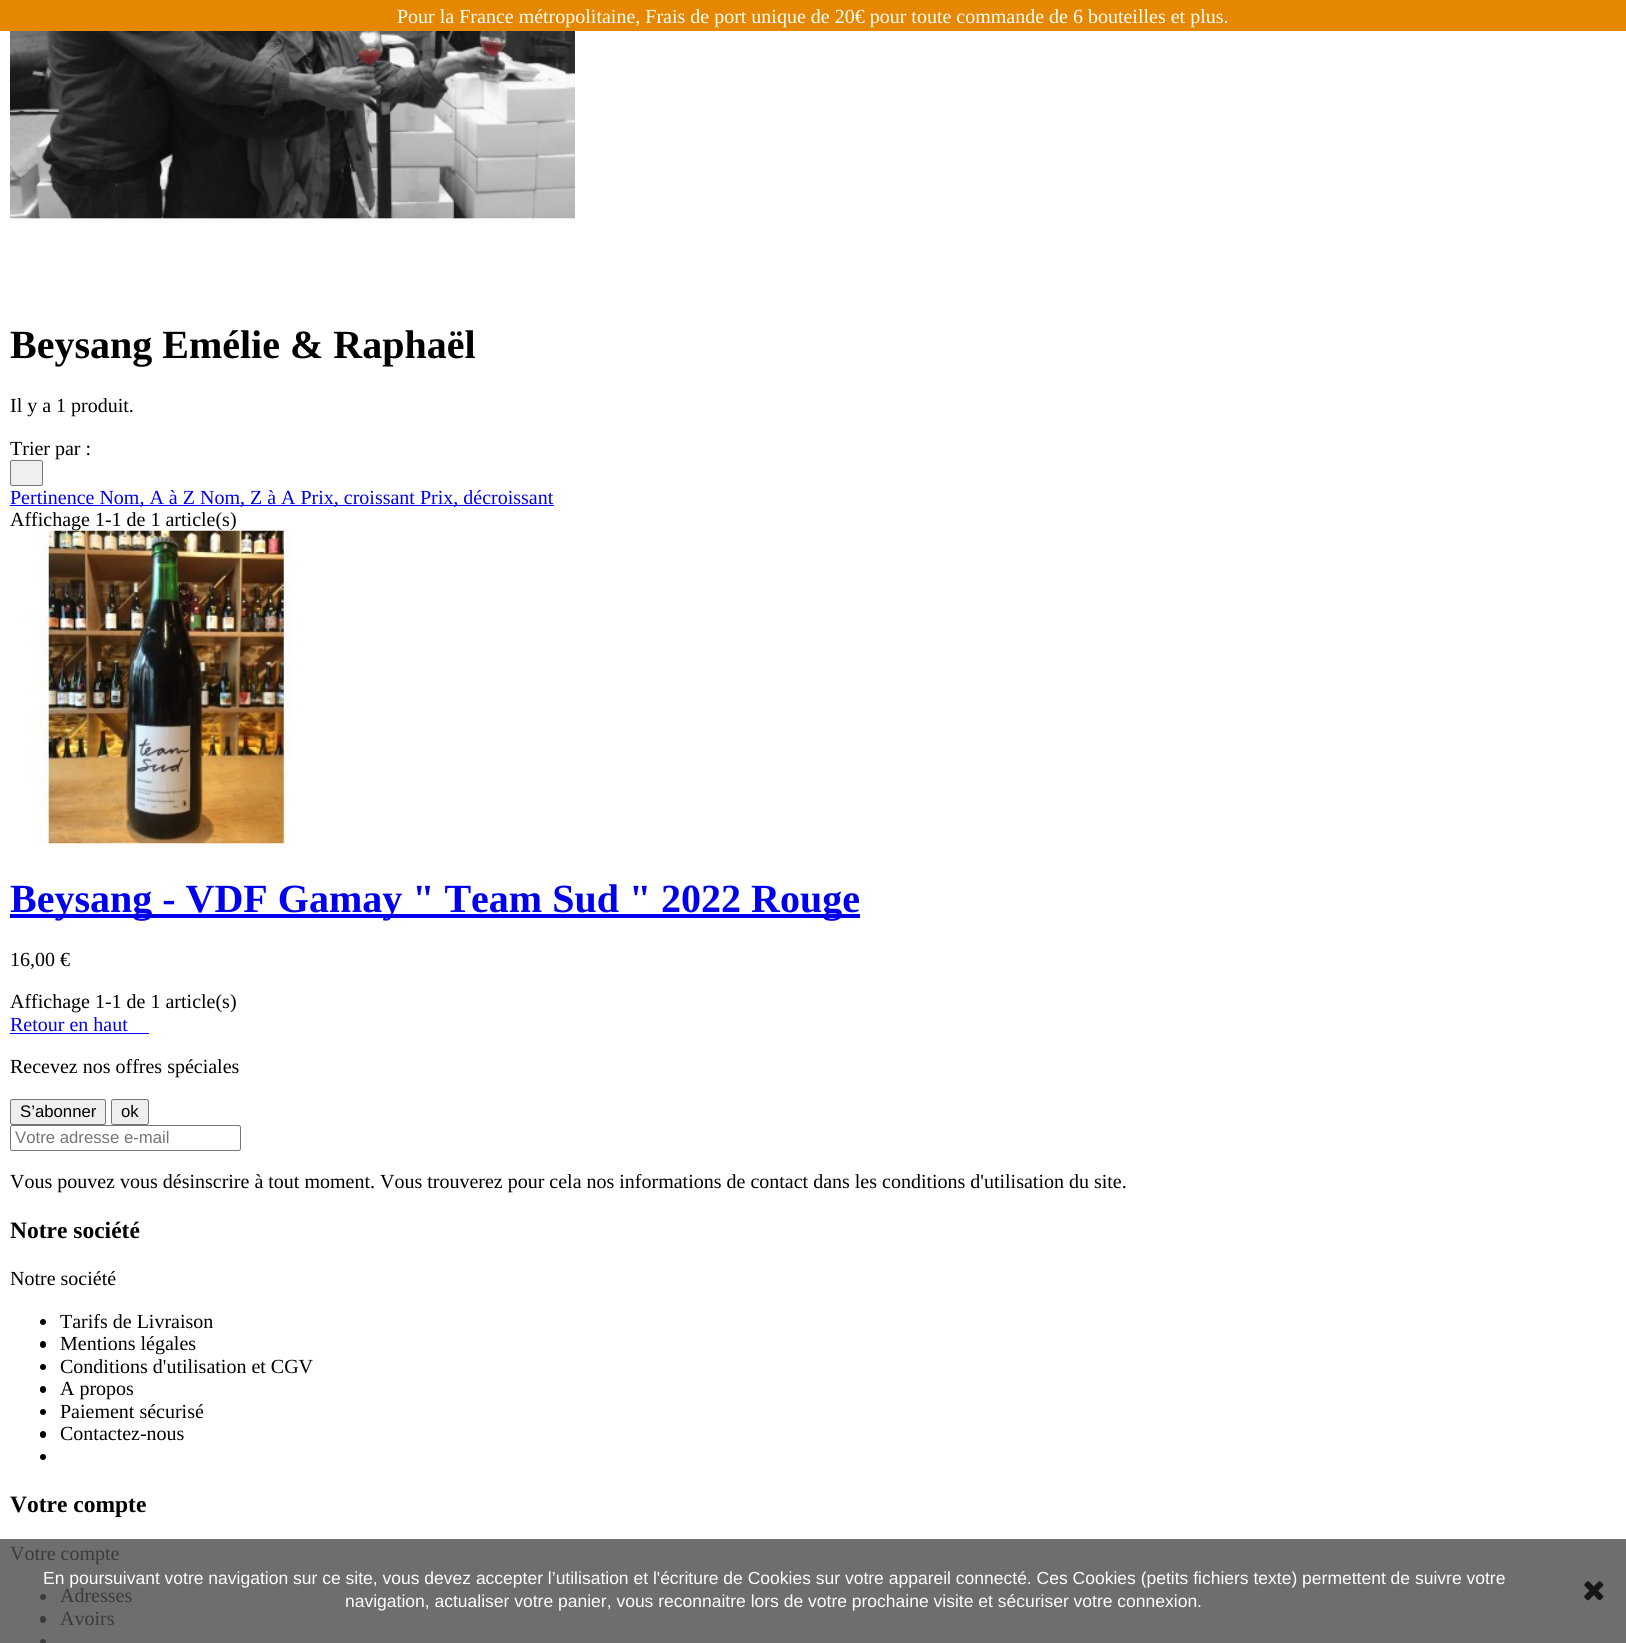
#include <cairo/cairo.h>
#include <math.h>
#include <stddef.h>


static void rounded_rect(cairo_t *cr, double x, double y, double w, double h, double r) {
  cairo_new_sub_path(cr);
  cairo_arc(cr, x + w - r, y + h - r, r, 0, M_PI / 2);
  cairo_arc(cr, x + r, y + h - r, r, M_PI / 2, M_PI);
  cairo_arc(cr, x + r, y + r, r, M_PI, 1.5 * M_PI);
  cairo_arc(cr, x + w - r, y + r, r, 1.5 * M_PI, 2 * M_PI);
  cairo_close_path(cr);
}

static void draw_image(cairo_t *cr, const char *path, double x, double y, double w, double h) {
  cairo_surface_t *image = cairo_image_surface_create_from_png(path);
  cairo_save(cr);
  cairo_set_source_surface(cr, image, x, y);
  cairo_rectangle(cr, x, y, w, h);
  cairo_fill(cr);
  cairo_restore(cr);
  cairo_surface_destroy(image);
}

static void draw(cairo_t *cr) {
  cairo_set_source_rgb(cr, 1, 1, 1);
  cairo_paint(cr);
  cairo_set_source_rgb(cr, 110 / 255.0, 110 / 255.0, 110 / 255.0);
  cairo_rectangle(cr, 0, 1539, 1626, 104);
  cairo_fill(cr);
  cairo_set_source_rgb(cr, 230 / 255.0, 135 / 255.0, 0);
  cairo_rectangle(cr, 0, 0, 1626, 31);
  cairo_fill(cr);
  draw_image(cr, "images/1.png", 10, 31, 565, 192);
  cairo_set_source_rgb(cr, 239 / 255.0, 239 / 255.0, 239 / 255.0);
  rounded_rect(cr, 10.5, 460.5, 32, 25, 2);
  cairo_fill_preserve(cr);
  cairo_set_source_rgb(cr, 118 / 255.0, 118 / 255.0, 118 / 255.0);
  cairo_set_line_width(cr, 1);
  cairo_stroke(cr);
  cairo_set_source_rgb(cr, 0, 0, 238 / 255.0);
  cairo_rectangle(cr, 10, 505, 544, 1);
  cairo_fill(cr);
  cairo_rectangle(cr, 10, 914, 850, 4);
  cairo_fill(cr);
  cairo_rectangle(cr, 10, 1033, 139, 1);
  cairo_fill(cr);
  cairo_set_source_rgb(cr, 239 / 255.0, 239 / 255.0, 239 / 255.0);
  rounded_rect(cr, 10.5, 1099.5, 95, 25, 2);
  cairo_fill_preserve(cr);
  cairo_set_source_rgb(cr, 118 / 255.0, 118 / 255.0, 118 / 255.0);
  cairo_stroke(cr);
  cairo_set_source_rgb(cr, 239 / 255.0, 239 / 255.0, 239 / 255.0);
  rounded_rect(cr, 111.5, 1099.5, 37, 25, 2);
  cairo_fill_preserve(cr);
  cairo_set_source_rgb(cr, 118 / 255.0, 118 / 255.0, 118 / 255.0);
  cairo_stroke(cr);
  rounded_rect(cr, 10.5, 1125.5, 230, 25, 2);
  cairo_stroke(cr);
  cairo_set_source_rgb(cr, 0, 0, 0);
  cairo_arc(cr, 43, 1322, 3, 0, 2 * M_PI);
  cairo_fill(cr);
  rounded_rect(cr, 40, 1341, 6, 7, 3);
  cairo_fill(cr);
  cairo_arc(cr, 43, 1367, 3, 0, 2 * M_PI);
  cairo_fill(cr);
  rounded_rect(cr, 40, 1386, 6, 7, 3);
  cairo_fill(cr);
  cairo_arc(cr, 43, 1412, 3, 0, 2 * M_PI);
  cairo_fill(cr);
  rounded_rect(cr, 40, 1431, 6, 7, 3);
  cairo_fill(cr);
  cairo_arc(cr, 43, 1457, 3, 0, 2 * M_PI);
  cairo_fill(cr);
  cairo_set_source_rgb(cr, 59 / 255.0, 59 / 255.0, 59 / 255.0);
  cairo_arc(cr, 43, 1597, 3, 0, 2 * M_PI);
  cairo_fill(cr);
  rounded_rect(cr, 40, 1616, 6, 7, 3);
  cairo_fill(cr);
  cairo_arc(cr, 43, 1642, 3, 0, 2 * M_PI);
  cairo_fill(cr);
  draw_image(cr, "images/3.png", 1584, 1581, 20, 20);
  cairo_select_font_face(cr, "Liberation Serif", CAIRO_FONT_SLANT_NORMAL, CAIRO_FONT_WEIGHT_NORMAL);
  cairo_set_font_size(cr, 20);
  cairo_set_source_rgb(cr, 1, 1, 1);
  cairo_move_to(cr, 397, 23);
  cairo_show_text(cr, "Pour la France métropolitaine, Frais de port unique de 20€ pour toute commande de 6 bouteilles et plus.");
  cairo_select_font_face(cr, "Liberation Serif", CAIRO_FONT_SLANT_NORMAL, CAIRO_FONT_WEIGHT_BOLD);
  cairo_set_font_size(cr, 40);
  cairo_set_source_rgb(cr, 0, 0, 0);
  cairo_move_to(cr, 10, 358);
  cairo_show_text(cr, "Beysang Emélie & Raphaël");
  cairo_select_font_face(cr, "Liberation Serif", CAIRO_FONT_SLANT_NORMAL, CAIRO_FONT_WEIGHT_NORMAL);
  cairo_set_font_size(cr, 20);
  cairo_move_to(cr, 10, 412);
  cairo_show_text(cr, "Il y a 1 produit.");
  cairo_move_to(cr, 10, 455);
  cairo_show_text(cr, "Trier par :");
  cairo_set_source_rgb(cr, 0, 0, 238 / 255.0);
  cairo_move_to(cr, 10, 504);
  cairo_show_text(cr, "Pertinence Nom, A à Z Nom, Z à A Prix, croissant Prix, décroissant");
  cairo_set_source_rgb(cr, 0, 0, 0);
  cairo_move_to(cr, 10, 526);
  cairo_show_text(cr, "Affichage 1-1 de 1 article(s)");
  draw_image(cr, "images/2.png", 30, 530, 261, 314);
  cairo_select_font_face(cr, "Liberation Serif", CAIRO_FONT_SLANT_NORMAL, CAIRO_FONT_WEIGHT_BOLD);
  cairo_set_font_size(cr, 40);
  cairo_set_source_rgb(cr, 0, 0, 238 / 255.0);
  cairo_move_to(cr, 10, 912);
  cairo_show_text(cr, "Beysang - VDF Gamay \" Team Sud \" 2022 Rouge");
  cairo_select_font_face(cr, "Liberation Serif", CAIRO_FONT_SLANT_NORMAL, CAIRO_FONT_WEIGHT_NORMAL);
  cairo_set_font_size(cr, 20);
  cairo_set_source_rgb(cr, 0, 0, 0);
  cairo_move_to(cr, 10, 966);
  cairo_show_text(cr, "16,00 €");
  cairo_move_to(cr, 10, 1008);
  cairo_show_text(cr, "Affichage 1-1 de 1 article(s)");
  cairo_set_source_rgb(cr, 0, 0, 238 / 255.0);
  cairo_move_to(cr, 10, 1031);
  cairo_show_text(cr, "Retour en haut");
  cairo_set_source_rgb(cr, 0, 0, 0);
  cairo_move_to(cr, 10, 1073);
  cairo_show_text(cr, "Recevez nos offres spéciales");
  cairo_select_font_face(cr, "Liberation Sans", CAIRO_FONT_SLANT_NORMAL, CAIRO_FONT_WEIGHT_NORMAL);
  cairo_set_font_size(cr, 16.75);
  cairo_move_to(cr, 20, 1117);
  cairo_show_text(cr, "S’abonner");
  cairo_move_to(cr, 121, 1117);
  cairo_show_text(cr, "ok");
  cairo_set_source_rgb(cr, 117 / 255.0, 117 / 255.0, 117 / 255.0);
  cairo_move_to(cr, 15, 1143);
  cairo_show_text(cr, "Votre adresse e-mail");
  cairo_select_font_face(cr, "Liberation Serif", CAIRO_FONT_SLANT_NORMAL, CAIRO_FONT_WEIGHT_NORMAL);
  cairo_set_font_size(cr, 20);
  cairo_set_source_rgb(cr, 0, 0, 0);
  cairo_move_to(cr, 10, 1188);
  cairo_show_text(cr, "Vous pouvez vous désinscrire à tout moment. Vous trouverez pour cela nos informations de contact dans les conditions d'utilisation du site.");
  cairo_select_font_face(cr, "Liberation Serif", CAIRO_FONT_SLANT_NORMAL, CAIRO_FONT_WEIGHT_BOLD);
  cairo_set_font_size(cr, 23.5);
  cairo_move_to(cr, 10, 1238);
  cairo_show_text(cr, "Notre société");
  cairo_select_font_face(cr, "Liberation Serif", CAIRO_FONT_SLANT_NORMAL, CAIRO_FONT_WEIGHT_NORMAL);
  cairo_set_font_size(cr, 20);
  cairo_move_to(cr, 10, 1285);
  cairo_show_text(cr, "Notre société");
  cairo_move_to(cr, 60, 1328);
  cairo_show_text(cr, "Tarifs de Livraison");
  cairo_move_to(cr, 60, 1350);
  cairo_show_text(cr, "Mentions légales");
  cairo_move_to(cr, 60, 1373);
  cairo_show_text(cr, "Conditions d'utilisation et CGV");
  cairo_move_to(cr, 60, 1395);
  cairo_show_text(cr, "A propos");
  cairo_move_to(cr, 60, 1418);
  cairo_show_text(cr, "Paiement sécurisé");
  cairo_move_to(cr, 60, 1440);
  cairo_show_text(cr, "Contactez-nous");
  cairo_select_font_face(cr, "Liberation Serif", CAIRO_FONT_SLANT_NORMAL, CAIRO_FONT_WEIGHT_BOLD);
  cairo_set_font_size(cr, 23.5);
  cairo_move_to(cr, 10, 1512);
  cairo_show_text(cr, "Votre compte");
  cairo_select_font_face(cr, "Liberation Serif", CAIRO_FONT_SLANT_NORMAL, CAIRO_FONT_WEIGHT_NORMAL);
  cairo_set_font_size(cr, 20);
  cairo_set_source_rgb(cr, 59 / 255.0, 59 / 255.0, 59 / 255.0);
  cairo_move_to(cr, 10, 1560);
  cairo_show_text(cr, "Votre compte");
  cairo_move_to(cr, 60, 1602);
  cairo_show_text(cr, "Adresses");
  cairo_move_to(cr, 60, 1625);
  cairo_show_text(cr, "Avoirs");
  cairo_select_font_face(cr, "Liberation Sans", CAIRO_FONT_SLANT_NORMAL, CAIRO_FONT_WEIGHT_NORMAL);
  cairo_set_font_size(cr, 17.5);
  cairo_set_source_rgb(cr, 1, 1, 1);
  cairo_move_to(cr, 43, 1584);
  cairo_show_text(cr, "En poursuivant votre navigation sur ce site, vous devez accepter l’utilisation et l'écriture de Cookies sur votre appareil connecté. Ces Cookies (petits fichiers texte) permettent de suivre votre");
  cairo_move_to(cr, 345, 1607);
  cairo_show_text(cr, "navigation, actualiser votre panier, vous reconnaitre lors de votre prochaine visite et sécuriser votre connexion.");
}

int main(void) {
  cairo_surface_t *surface = cairo_image_surface_create(CAIRO_FORMAT_RGB24, 1626, 1643);
  cairo_t *cr = cairo_create(surface);
  cairo_font_options_t *options = cairo_font_options_create();
  cairo_font_options_set_hint_metrics(options, CAIRO_HINT_METRICS_OFF);
  cairo_font_options_set_hint_style(options, CAIRO_HINT_STYLE_NONE);
  cairo_set_font_options(cr, options);
  cairo_set_miter_limit(cr, 4);
  draw(cr);
  cairo_surface_write_to_png(surface, "out.png");
  cairo_font_options_destroy(options);
  cairo_destroy(cr);
  cairo_surface_destroy(surface);
  return 0;
}
